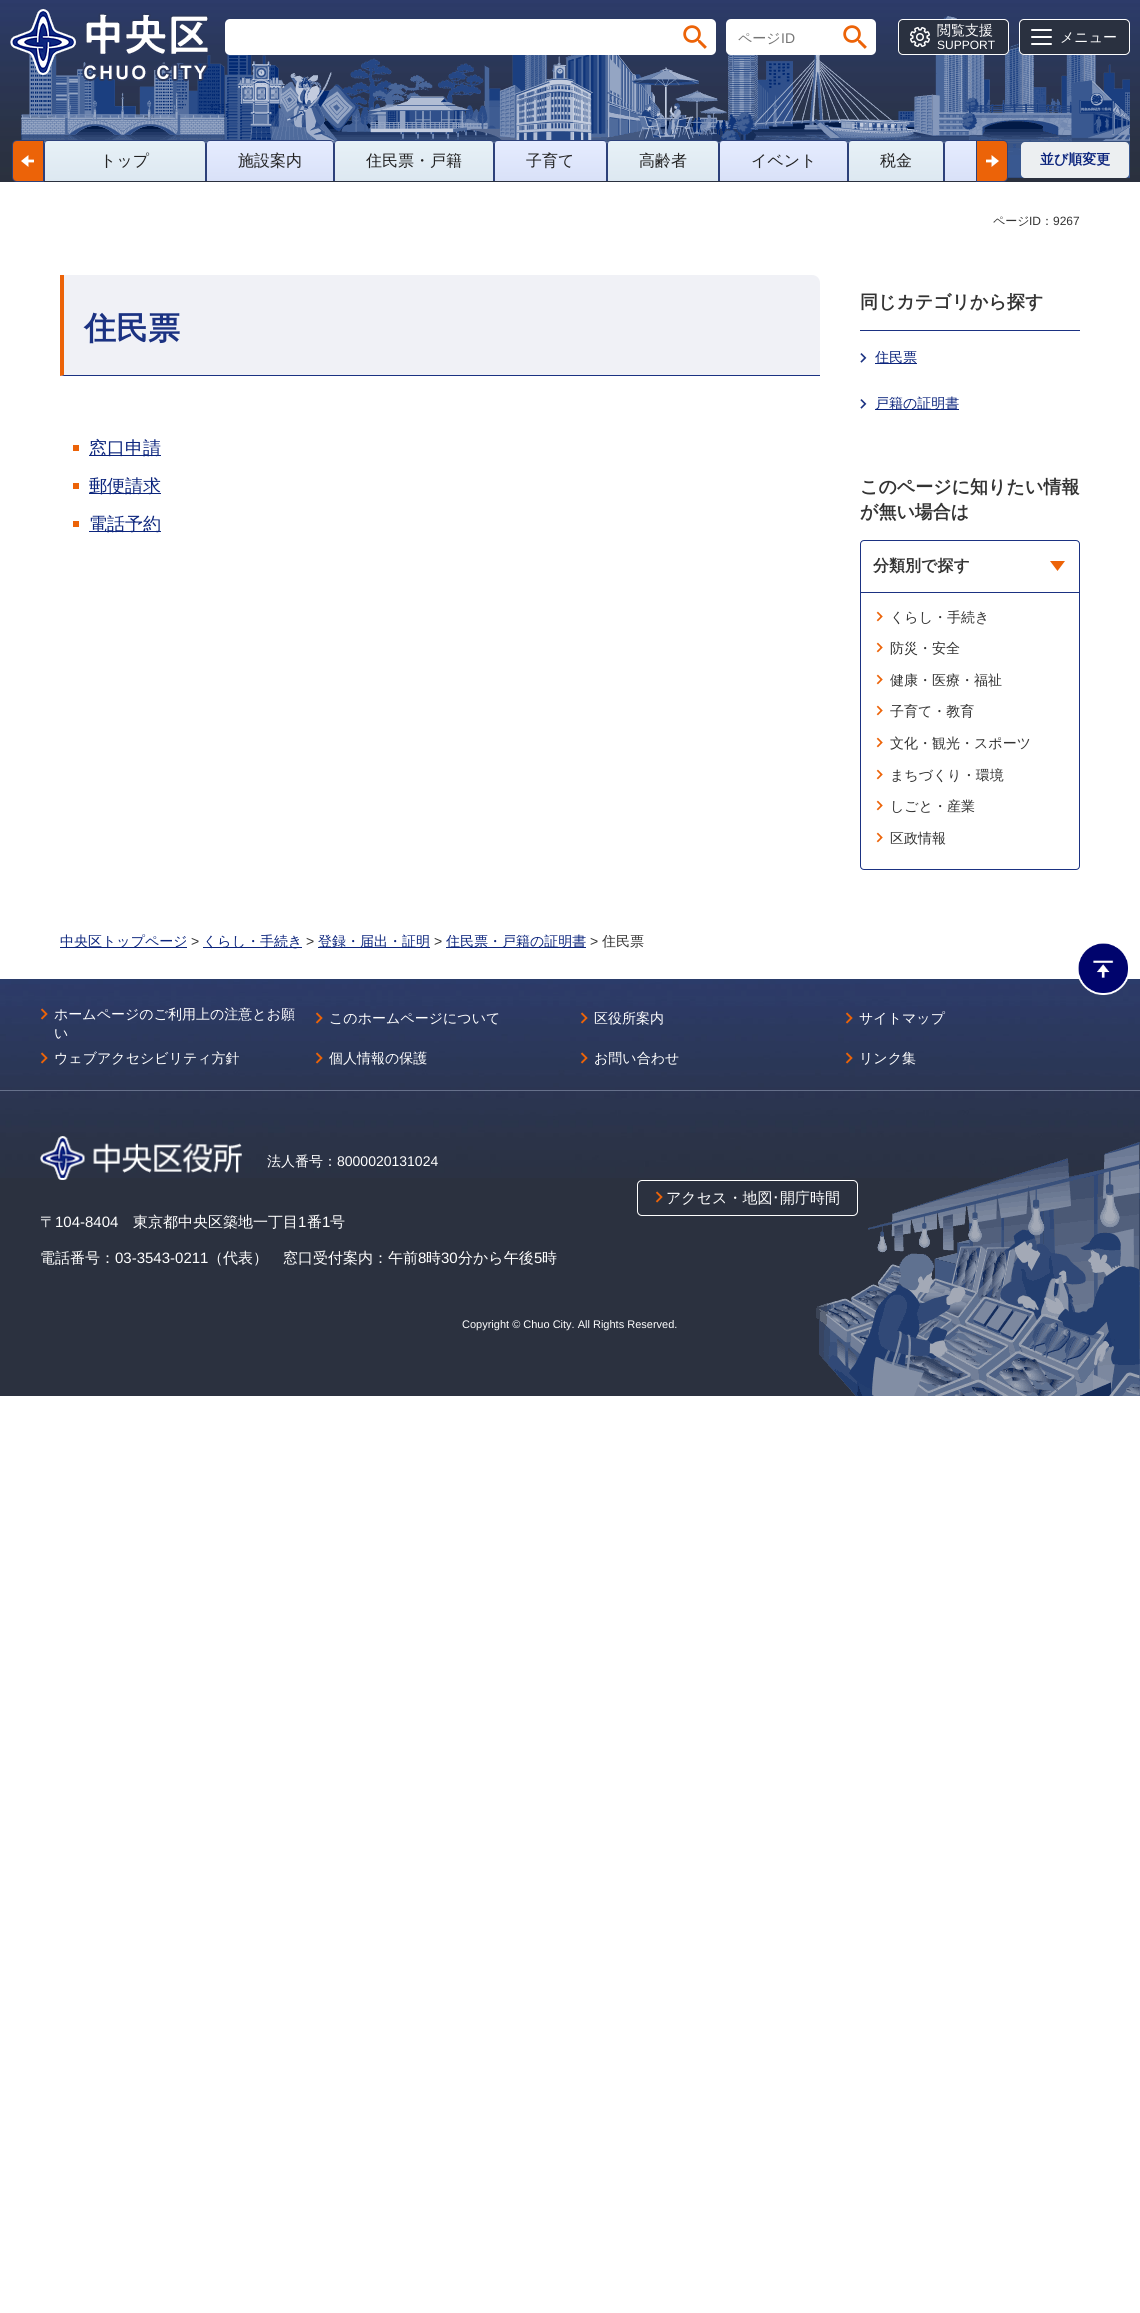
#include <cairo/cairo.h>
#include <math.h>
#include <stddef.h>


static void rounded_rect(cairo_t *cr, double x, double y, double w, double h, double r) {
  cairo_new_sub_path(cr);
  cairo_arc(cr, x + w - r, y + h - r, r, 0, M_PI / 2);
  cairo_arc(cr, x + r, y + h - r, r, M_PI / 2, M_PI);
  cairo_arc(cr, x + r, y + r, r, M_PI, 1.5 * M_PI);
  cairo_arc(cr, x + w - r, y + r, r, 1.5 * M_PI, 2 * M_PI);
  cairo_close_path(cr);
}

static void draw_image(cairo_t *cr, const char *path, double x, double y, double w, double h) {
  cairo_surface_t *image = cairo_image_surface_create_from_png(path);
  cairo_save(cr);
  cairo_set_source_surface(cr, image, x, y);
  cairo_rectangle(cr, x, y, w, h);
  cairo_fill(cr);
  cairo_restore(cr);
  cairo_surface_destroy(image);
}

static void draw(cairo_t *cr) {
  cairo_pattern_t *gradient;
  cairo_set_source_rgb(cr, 1, 1, 1);
  cairo_paint(cr);
  draw_image(cr, "images/1.png", 0, 0, 1140, 182);
  draw_image(cr, "images/3.png", 21, 16, 1109, 162);
  draw_image(cr, "images/2.png", 10, 9, 199, 72);
  cairo_set_source_rgb(cr, 1, 1, 1);
  rounded_rect(cr, 225, 19, 491, 36, 5);
  cairo_fill(cr);
  draw_image(cr, "images/4.png", 683, 25, 24, 24);
  rounded_rect(cr, 726, 19, 150, 36, 5);
  cairo_fill(cr);
  draw_image(cr, "images/4.png", 843, 25, 24, 24);
  cairo_set_source_rgb(cr, 42 / 255.0, 49 / 255.0, 64 / 255.0);
  rounded_rect(cr, 898, 19, 111, 36, 5);
  cairo_fill(cr);
  draw_image(cr, "images/5.png", 910, 27, 20, 20);
  rounded_rect(cr, 898.5, 19.5, 110, 35, 4.5);
  cairo_set_source_rgb(cr, 1, 1, 1);
  cairo_set_line_width(cr, 1);
  cairo_stroke(cr);
  cairo_set_source_rgb(cr, 42 / 255.0, 49 / 255.0, 64 / 255.0);
  rounded_rect(cr, 1019, 19, 111, 36, 5);
  cairo_fill(cr);
  draw_image(cr, "images/6.png", 1031, 29, 21, 16);
  rounded_rect(cr, 1019.5, 19.5, 110, 35, 4.5);
  cairo_set_source_rgb(cr, 1, 1, 1);
  cairo_stroke(cr);
  draw_image(cr, "images/7.png", 12, 140, 32, 42);
  cairo_save(cr);
  cairo_new_path(cr);
  cairo_move_to(cr, 48, 140);
  cairo_line_to(cr, 202, 140);
  cairo_curve_to(cr, 204, 140, 206, 142, 206, 144);
  cairo_line_to(cr, 206, 181);
  cairo_line_to(cr, 44, 181);
  cairo_line_to(cr, 44, 144);
  cairo_curve_to(cr, 44, 142, 46, 140, 48, 140);
  cairo_close_path(cr);
  cairo_clip(cr);
  gradient = cairo_pattern_create_linear(125, 141, 125, 181);
  cairo_pattern_add_color_stop_rgba(gradient, 0, 231 / 255.0, 241 / 255.0, 247 / 255.0, 1);
  cairo_pattern_add_color_stop_rgba(gradient, 1, 221 / 255.0, 232 / 255.0, 241 / 255.0, 1);
  cairo_set_source(cr, gradient);
  cairo_pattern_destroy(gradient);
  cairo_rectangle(cr, 44, 141, 162, 40);
  cairo_fill(cr);
  cairo_restore(cr);
  cairo_set_source_rgb(cr, 44 / 255.0, 64 / 255.0, 122 / 255.0);
  cairo_set_fill_rule(cr, CAIRO_FILL_RULE_EVEN_ODD);
  cairo_new_path(cr);
  cairo_move_to(cr, 48, 140);
  cairo_line_to(cr, 202, 140);
  cairo_curve_to(cr, 204, 140, 206, 142, 206, 144);
  cairo_line_to(cr, 206, 181);
  cairo_line_to(cr, 44, 181);
  cairo_line_to(cr, 44, 144);
  cairo_curve_to(cr, 44, 142, 46, 140, 48, 140);
  cairo_close_path(cr);
  cairo_move_to(cr, 48, 141);
  cairo_line_to(cr, 202, 141);
  cairo_curve_to(cr, 204, 141, 205, 142, 205, 144);
  cairo_line_to(cr, 205, 181);
  cairo_line_to(cr, 45, 181);
  cairo_line_to(cr, 45, 144);
  cairo_curve_to(cr, 45, 142, 46, 141, 48, 141);
  cairo_close_path(cr);
  cairo_fill(cr);
  cairo_save(cr);
  cairo_set_fill_rule(cr, CAIRO_FILL_RULE_WINDING);
  cairo_new_path(cr);
  cairo_move_to(cr, 210, 140);
  cairo_line_to(cr, 330, 140);
  cairo_curve_to(cr, 332, 140, 334, 142, 334, 144);
  cairo_line_to(cr, 334, 181);
  cairo_line_to(cr, 206, 181);
  cairo_line_to(cr, 206, 144);
  cairo_curve_to(cr, 206, 142, 208, 140, 210, 140);
  cairo_close_path(cr);
  cairo_clip(cr);
  gradient = cairo_pattern_create_linear(270, 141, 270, 181);
  cairo_pattern_add_color_stop_rgba(gradient, 0, 229 / 255.0, 236 / 255.0, 1, 1);
  cairo_pattern_add_color_stop_rgba(gradient, 1, 217 / 255.0, 225 / 255.0, 248 / 255.0, 1);
  cairo_set_source(cr, gradient);
  cairo_pattern_destroy(gradient);
  cairo_rectangle(cr, 206, 141, 128, 40);
  cairo_fill(cr);
  cairo_restore(cr);
  cairo_new_path(cr);
  cairo_move_to(cr, 210, 140);
  cairo_line_to(cr, 330, 140);
  cairo_curve_to(cr, 332, 140, 334, 142, 334, 144);
  cairo_line_to(cr, 334, 181);
  cairo_line_to(cr, 206, 181);
  cairo_line_to(cr, 206, 144);
  cairo_curve_to(cr, 206, 142, 208, 140, 210, 140);
  cairo_close_path(cr);
  cairo_move_to(cr, 210, 141);
  cairo_line_to(cr, 330, 141);
  cairo_curve_to(cr, 332, 141, 333, 142, 333, 144);
  cairo_line_to(cr, 333, 181);
  cairo_line_to(cr, 207, 181);
  cairo_line_to(cr, 207, 144);
  cairo_curve_to(cr, 207, 142, 208, 141, 210, 141);
  cairo_close_path(cr);
  cairo_fill(cr);
  cairo_save(cr);
  cairo_set_fill_rule(cr, CAIRO_FILL_RULE_WINDING);
  cairo_new_path(cr);
  cairo_move_to(cr, 338, 140);
  cairo_line_to(cr, 490, 140);
  cairo_curve_to(cr, 492, 140, 494, 142, 494, 144);
  cairo_line_to(cr, 494, 181);
  cairo_line_to(cr, 334, 181);
  cairo_line_to(cr, 334, 144);
  cairo_curve_to(cr, 334, 142, 336, 140, 338, 140);
  cairo_close_path(cr);
  cairo_clip(cr);
  gradient = cairo_pattern_create_linear(414, 141, 414, 181);
  cairo_pattern_add_color_stop_rgba(gradient, 0, 231 / 255.0, 241 / 255.0, 247 / 255.0, 1);
  cairo_pattern_add_color_stop_rgba(gradient, 1, 221 / 255.0, 232 / 255.0, 241 / 255.0, 1);
  cairo_set_source(cr, gradient);
  cairo_pattern_destroy(gradient);
  cairo_rectangle(cr, 334, 141, 160, 40);
  cairo_fill(cr);
  cairo_restore(cr);
  cairo_new_path(cr);
  cairo_move_to(cr, 338, 140);
  cairo_line_to(cr, 490, 140);
  cairo_curve_to(cr, 492, 140, 494, 142, 494, 144);
  cairo_line_to(cr, 494, 181);
  cairo_line_to(cr, 334, 181);
  cairo_line_to(cr, 334, 144);
  cairo_curve_to(cr, 334, 142, 336, 140, 338, 140);
  cairo_close_path(cr);
  cairo_move_to(cr, 338, 141);
  cairo_line_to(cr, 490, 141);
  cairo_curve_to(cr, 492, 141, 493, 142, 493, 144);
  cairo_line_to(cr, 493, 181);
  cairo_line_to(cr, 335, 181);
  cairo_line_to(cr, 335, 144);
  cairo_curve_to(cr, 335, 142, 336, 141, 338, 141);
  cairo_close_path(cr);
  cairo_fill(cr);
  cairo_save(cr);
  cairo_set_fill_rule(cr, CAIRO_FILL_RULE_WINDING);
  cairo_new_path(cr);
  cairo_move_to(cr, 498, 140);
  cairo_line_to(cr, 603, 140);
  cairo_curve_to(cr, 605, 140, 607, 142, 607, 144);
  cairo_line_to(cr, 607, 181);
  cairo_line_to(cr, 494, 181);
  cairo_line_to(cr, 494, 144);
  cairo_curve_to(cr, 494, 142, 496, 140, 498, 140);
  cairo_close_path(cr);
  cairo_clip(cr);
  gradient = cairo_pattern_create_linear(551, 141, 551, 181);
  cairo_pattern_add_color_stop_rgba(gradient, 0, 229 / 255.0, 236 / 255.0, 1, 1);
  cairo_pattern_add_color_stop_rgba(gradient, 1, 217 / 255.0, 225 / 255.0, 248 / 255.0, 1);
  cairo_set_source(cr, gradient);
  cairo_pattern_destroy(gradient);
  cairo_rectangle(cr, 494, 141, 113, 40);
  cairo_fill(cr);
  cairo_restore(cr);
  cairo_new_path(cr);
  cairo_move_to(cr, 498, 140);
  cairo_line_to(cr, 603, 140);
  cairo_curve_to(cr, 605, 140, 607, 142, 607, 144);
  cairo_line_to(cr, 607, 181);
  cairo_line_to(cr, 494, 181);
  cairo_line_to(cr, 494, 144);
  cairo_curve_to(cr, 494, 142, 496, 140, 498, 140);
  cairo_close_path(cr);
  cairo_move_to(cr, 498, 141);
  cairo_line_to(cr, 603, 141);
  cairo_curve_to(cr, 605, 141, 606, 142, 606, 144);
  cairo_line_to(cr, 606, 181);
  cairo_line_to(cr, 495, 181);
  cairo_line_to(cr, 495, 144);
  cairo_curve_to(cr, 495, 142, 496, 141, 498, 141);
  cairo_close_path(cr);
  cairo_fill(cr);
  cairo_save(cr);
  cairo_set_fill_rule(cr, CAIRO_FILL_RULE_WINDING);
  cairo_new_path(cr);
  cairo_move_to(cr, 611, 140);
  cairo_line_to(cr, 715, 140);
  cairo_curve_to(cr, 717, 140, 719, 142, 719, 144);
  cairo_line_to(cr, 719, 181);
  cairo_line_to(cr, 607, 181);
  cairo_line_to(cr, 607, 144);
  cairo_curve_to(cr, 607, 142, 609, 140, 611, 140);
  cairo_close_path(cr);
  cairo_clip(cr);
  gradient = cairo_pattern_create_linear(663, 141, 663, 181);
  cairo_pattern_add_color_stop_rgba(gradient, 0, 231 / 255.0, 241 / 255.0, 247 / 255.0, 1);
  cairo_pattern_add_color_stop_rgba(gradient, 1, 221 / 255.0, 232 / 255.0, 241 / 255.0, 1);
  cairo_set_source(cr, gradient);
  cairo_pattern_destroy(gradient);
  cairo_rectangle(cr, 607, 141, 112, 40);
  cairo_fill(cr);
  cairo_restore(cr);
  cairo_new_path(cr);
  cairo_move_to(cr, 611, 140);
  cairo_line_to(cr, 715, 140);
  cairo_curve_to(cr, 717, 140, 719, 142, 719, 144);
  cairo_line_to(cr, 719, 181);
  cairo_line_to(cr, 607, 181);
  cairo_line_to(cr, 607, 144);
  cairo_curve_to(cr, 607, 142, 609, 140, 611, 140);
  cairo_close_path(cr);
  cairo_move_to(cr, 611, 141);
  cairo_line_to(cr, 715, 141);
  cairo_curve_to(cr, 717, 141, 718, 142, 718, 144);
  cairo_line_to(cr, 718, 181);
  cairo_line_to(cr, 608, 181);
  cairo_line_to(cr, 608, 144);
  cairo_curve_to(cr, 608, 142, 609, 141, 611, 141);
  cairo_close_path(cr);
  cairo_fill(cr);
  cairo_save(cr);
  cairo_set_fill_rule(cr, CAIRO_FILL_RULE_WINDING);
  cairo_new_path(cr);
  cairo_move_to(cr, 723, 140);
  cairo_line_to(cr, 844, 140);
  cairo_curve_to(cr, 846, 140, 848, 142, 848, 144);
  cairo_line_to(cr, 848, 181);
  cairo_line_to(cr, 719, 181);
  cairo_line_to(cr, 719, 144);
  cairo_curve_to(cr, 719, 142, 721, 140, 723, 140);
  cairo_close_path(cr);
  cairo_clip(cr);
  gradient = cairo_pattern_create_linear(784, 141, 784, 181);
  cairo_pattern_add_color_stop_rgba(gradient, 0, 229 / 255.0, 236 / 255.0, 1, 1);
  cairo_pattern_add_color_stop_rgba(gradient, 1, 217 / 255.0, 225 / 255.0, 248 / 255.0, 1);
  cairo_set_source(cr, gradient);
  cairo_pattern_destroy(gradient);
  cairo_rectangle(cr, 719, 141, 129, 40);
  cairo_fill(cr);
  cairo_restore(cr);
  cairo_new_path(cr);
  cairo_move_to(cr, 723, 140);
  cairo_line_to(cr, 844, 140);
  cairo_curve_to(cr, 846, 140, 848, 142, 848, 144);
  cairo_line_to(cr, 848, 181);
  cairo_line_to(cr, 719, 181);
  cairo_line_to(cr, 719, 144);
  cairo_curve_to(cr, 719, 142, 721, 140, 723, 140);
  cairo_close_path(cr);
  cairo_move_to(cr, 723, 141);
  cairo_line_to(cr, 844, 141);
  cairo_curve_to(cr, 846, 141, 847, 142, 847, 144);
  cairo_line_to(cr, 847, 181);
  cairo_line_to(cr, 720, 181);
  cairo_line_to(cr, 720, 144);
  cairo_curve_to(cr, 720, 142, 721, 141, 723, 141);
  cairo_close_path(cr);
  cairo_fill(cr);
  cairo_save(cr);
  cairo_set_fill_rule(cr, CAIRO_FILL_RULE_WINDING);
  cairo_new_path(cr);
  cairo_move_to(cr, 852, 140);
  cairo_line_to(cr, 940, 140);
  cairo_curve_to(cr, 942, 140, 944, 142, 944, 144);
  cairo_line_to(cr, 944, 181);
  cairo_line_to(cr, 848, 181);
  cairo_line_to(cr, 848, 144);
  cairo_curve_to(cr, 848, 142, 850, 140, 852, 140);
  cairo_close_path(cr);
  cairo_clip(cr);
  gradient = cairo_pattern_create_linear(896, 141, 896, 181);
  cairo_pattern_add_color_stop_rgba(gradient, 0, 231 / 255.0, 241 / 255.0, 247 / 255.0, 1);
  cairo_pattern_add_color_stop_rgba(gradient, 1, 221 / 255.0, 232 / 255.0, 241 / 255.0, 1);
  cairo_set_source(cr, gradient);
  cairo_pattern_destroy(gradient);
  cairo_rectangle(cr, 848, 141, 96, 40);
  cairo_fill(cr);
  cairo_restore(cr);
  cairo_new_path(cr);
  cairo_move_to(cr, 852, 140);
  cairo_line_to(cr, 940, 140);
  cairo_curve_to(cr, 942, 140, 944, 142, 944, 144);
  cairo_line_to(cr, 944, 181);
  cairo_line_to(cr, 848, 181);
  cairo_line_to(cr, 848, 144);
  cairo_curve_to(cr, 848, 142, 850, 140, 852, 140);
  cairo_close_path(cr);
  cairo_move_to(cr, 852, 141);
  cairo_line_to(cr, 940, 141);
  cairo_curve_to(cr, 942, 141, 943, 142, 943, 144);
  cairo_line_to(cr, 943, 181);
  cairo_line_to(cr, 849, 181);
  cairo_line_to(cr, 849, 144);
  cairo_curve_to(cr, 849, 142, 850, 141, 852, 141);
  cairo_close_path(cr);
  cairo_fill(cr);
  cairo_save(cr);
  cairo_set_fill_rule(cr, CAIRO_FILL_RULE_WINDING);
  cairo_new_path(cr);
  cairo_move_to(cr, 948, 140);
  cairo_line_to(cr, 1052, 140);
  cairo_curve_to(cr, 1054, 140, 1056, 142, 1056, 144);
  cairo_line_to(cr, 1056, 181);
  cairo_line_to(cr, 944, 181);
  cairo_line_to(cr, 944, 144);
  cairo_curve_to(cr, 944, 142, 946, 140, 948, 140);
  cairo_close_path(cr);
  cairo_clip(cr);
  gradient = cairo_pattern_create_linear(1000, 141, 1000, 181);
  cairo_pattern_add_color_stop_rgba(gradient, 0, 229 / 255.0, 236 / 255.0, 1, 1);
  cairo_pattern_add_color_stop_rgba(gradient, 1, 217 / 255.0, 225 / 255.0, 248 / 255.0, 1);
  cairo_set_source(cr, gradient);
  cairo_pattern_destroy(gradient);
  cairo_rectangle(cr, 944, 141, 32, 40);
  cairo_fill(cr);
  cairo_restore(cr);
  cairo_save(cr);
  cairo_set_fill_rule(cr, CAIRO_FILL_RULE_WINDING);
  cairo_rectangle(cr, 44, 132, 932, 51);
  cairo_clip(cr);
  cairo_set_fill_rule(cr, CAIRO_FILL_RULE_EVEN_ODD);
  cairo_new_path(cr);
  cairo_move_to(cr, 948, 140);
  cairo_line_to(cr, 1052, 140);
  cairo_curve_to(cr, 1054, 140, 1056, 142, 1056, 144);
  cairo_line_to(cr, 1056, 181);
  cairo_line_to(cr, 944, 181);
  cairo_line_to(cr, 944, 144);
  cairo_curve_to(cr, 944, 142, 946, 140, 948, 140);
  cairo_close_path(cr);
  cairo_move_to(cr, 948, 141);
  cairo_line_to(cr, 1052, 141);
  cairo_curve_to(cr, 1054, 141, 1055, 142, 1055, 144);
  cairo_line_to(cr, 1055, 181);
  cairo_line_to(cr, 945, 181);
  cairo_line_to(cr, 945, 144);
  cairo_curve_to(cr, 945, 142, 946, 141, 948, 141);
  cairo_close_path(cr);
  cairo_fill(cr);
  cairo_restore(cr);
  draw_image(cr, "images/8.png", 976, 140, 32, 42);
  cairo_set_source_rgb(cr, 236 / 255.0, 239 / 255.0, 241 / 255.0);
  rounded_rect(cr, 1021, 142, 108, 36, 4);
  cairo_fill(cr);
  cairo_set_source_rgb(cr, 240 / 255.0, 241 / 255.0, 246 / 255.0);
  cairo_new_path(cr);
  cairo_move_to(cr, 60, 275);
  cairo_line_to(cr, 812, 275);
  cairo_curve_to(cr, 816.5, 275, 820, 278.5, 820, 283);
  cairo_line_to(cr, 820, 376);
  cairo_line_to(cr, 60, 376);
  cairo_close_path(cr);
  cairo_fill(cr);
  cairo_set_source_rgb(cr, 27 / 255.0, 50 / 255.0, 130 / 255.0);
  cairo_set_fill_rule(cr, CAIRO_FILL_RULE_WINDING);
  cairo_new_path(cr);
  cairo_move_to(cr, 820, 376);
  cairo_line_to(cr, 820, 375);
  cairo_line_to(cr, 64, 375);
  cairo_line_to(cr, 60, 376);
  cairo_close_path(cr);
  cairo_fill(cr);
  cairo_set_source_rgb(cr, 236 / 255.0, 99 / 255.0, 8 / 255.0);
  cairo_new_path(cr);
  cairo_move_to(cr, 60, 275);
  cairo_line_to(cr, 64, 275);
  cairo_line_to(cr, 64, 375);
  cairo_line_to(cr, 60, 376);
  cairo_close_path(cr);
  cairo_fill(cr);
  cairo_rectangle(cr, 73, 445, 6, 6);
  cairo_fill(cr);
  cairo_set_source_rgb(cr, 12 / 255.0, 37 / 255.0, 125 / 255.0);
  cairo_rectangle(cr, 89, 455, 72, 1);
  cairo_fill(cr);
  cairo_set_source_rgb(cr, 236 / 255.0, 99 / 255.0, 8 / 255.0);
  cairo_rectangle(cr, 73, 483, 6, 6);
  cairo_fill(cr);
  cairo_set_source_rgb(cr, 12 / 255.0, 37 / 255.0, 125 / 255.0);
  cairo_rectangle(cr, 89, 493, 72, 1);
  cairo_fill(cr);
  cairo_set_source_rgb(cr, 236 / 255.0, 99 / 255.0, 8 / 255.0);
  cairo_rectangle(cr, 73, 521, 6, 6);
  cairo_fill(cr);
  cairo_set_source_rgb(cr, 12 / 255.0, 37 / 255.0, 125 / 255.0);
  cairo_rectangle(cr, 89, 531, 72, 1);
  cairo_fill(cr);
  cairo_set_source_rgb(cr, 27 / 255.0, 50 / 255.0, 130 / 255.0);
  cairo_rectangle(cr, 860, 330, 220, 1);
  cairo_fill(cr);
  draw_image(cr, "images/9.png", 860, 353, 7, 10);
  cairo_set_source_rgb(cr, 12 / 255.0, 37 / 255.0, 125 / 255.0);
  cairo_rectangle(cr, 875, 363, 42, 1);
  cairo_fill(cr);
  draw_image(cr, "images/9.png", 860, 399, 7, 10);
  cairo_rectangle(cr, 875, 409, 84, 1);
  cairo_fill(cr);
  rounded_rect(cr, 860.5, 540.5, 219, 329, 3.5);
  cairo_set_source_rgb(cr, 27 / 255.0, 50 / 255.0, 130 / 255.0);
  cairo_stroke(cr);
  draw_image(cr, "images/10.png", 1050, 561, 15, 10);
  cairo_rectangle(cr, 861, 592, 218, 1);
  cairo_fill(cr);
  draw_image(cr, "images/11.png", 876, 611, 7, 11);
  draw_image(cr, "images/11.png", 876, 642, 7, 11);
  draw_image(cr, "images/11.png", 876, 674, 7, 11);
  draw_image(cr, "images/11.png", 876, 705, 7, 11);
  draw_image(cr, "images/11.png", 876, 737, 7, 11);
  draw_image(cr, "images/11.png", 876, 769, 7, 11);
  draw_image(cr, "images/11.png", 876, 800, 7, 11);
  draw_image(cr, "images/11.png", 876, 832, 7, 11);
  cairo_set_source_rgb(cr, 12 / 255.0, 37 / 255.0, 125 / 255.0);
  cairo_rectangle(cr, 60, 947, 127, 1);
  cairo_fill(cr);
  cairo_rectangle(cr, 203, 947, 99, 1);
  cairo_fill(cr);
  cairo_rectangle(cr, 318, 947, 112, 1);
  cairo_fill(cr);
  cairo_rectangle(cr, 446, 947, 140, 1);
  cairo_fill(cr);
  cairo_set_source_rgb(cr, 43 / 255.0, 49 / 255.0, 63 / 255.0);
  cairo_rectangle(cr, 0, 1178, 1140, 218);
  cairo_fill(cr);
  draw_image(cr, "images/12.png", 0, 979, 1140, 199);
  draw_image(cr, "images/13.png", 1078, 943, 50, 52);
  cairo_set_source_rgb(cr, 102 / 255.0, 112 / 255.0, 139 / 255.0);
  cairo_rectangle(cr, 0, 1090, 1140, 1);
  cairo_fill(cr);
  draw_image(cr, "images/14.png", 40, 1008, 8, 12);
  draw_image(cr, "images/15.png", 315, 1012, 8, 12);
  draw_image(cr, "images/16.png", 580, 1012, 8, 12);
  draw_image(cr, "images/17.png", 845, 1012, 8, 12);
  draw_image(cr, "images/18.png", 40, 1052, 8, 12);
  draw_image(cr, "images/19.png", 315, 1052, 8, 12);
  draw_image(cr, "images/20.png", 580, 1052, 8, 12);
  draw_image(cr, "images/21.png", 845, 1052, 8, 12);
  draw_image(cr, "images/22.png", 40, 1136, 202, 44);
  draw_image(cr, "images/24.png", 816, 1142, 324, 254);
  rounded_rect(cr, 637.5, 1180.5, 220, 35, 4.5);
  cairo_set_source_rgb(cr, 1, 1, 1);
  cairo_stroke(cr);
  draw_image(cr, "images/23.png", 655, 1191, 8, 12);
  cairo_select_font_face(cr, "WenQuanYi Zen Hei Medium", CAIRO_FONT_SLANT_NORMAL, CAIRO_FONT_WEIGHT_NORMAL);
  cairo_set_font_size(cr, 14);
  cairo_set_source_rgb(cr, 117 / 255.0, 117 / 255.0, 117 / 255.0);
  cairo_move_to(cr, 738, 43);
  cairo_show_text(cr, "ページ");
  cairo_select_font_face(cr, "Liberation Sans", CAIRO_FONT_SLANT_NORMAL, CAIRO_FONT_WEIGHT_NORMAL);
  cairo_move_to(cr, 781, 43);
  cairo_show_text(cr, "ID");
  cairo_select_font_face(cr, "WenQuanYi Zen Hei Medium", CAIRO_FONT_SLANT_NORMAL, CAIRO_FONT_WEIGHT_NORMAL);
  cairo_set_source_rgb(cr, 1, 1, 1);
  cairo_move_to(cr, 937, 35);
  cairo_show_text(cr, "閲覧支援");
  cairo_select_font_face(cr, "Liberation Sans", CAIRO_FONT_SLANT_NORMAL, CAIRO_FONT_WEIGHT_NORMAL);
  cairo_set_font_size(cr, 12);
  cairo_move_to(cr, 937, 49);
  cairo_show_text(cr, "SUPPORT");
  cairo_select_font_face(cr, "WenQuanYi Zen Hei Medium", CAIRO_FONT_SLANT_NORMAL, CAIRO_FONT_WEIGHT_NORMAL);
  cairo_set_font_size(cr, 14);
  cairo_move_to(cr, 1060, 42);
  cairo_show_text(cr, "メニュー");
  cairo_set_font_size(cr, 16);
  cairo_set_source_rgb(cr, 34 / 255.0, 34 / 255.0, 34 / 255.0);
  cairo_move_to(cr, 100, 166);
  cairo_show_text(cr, "トップ");
  cairo_move_to(cr, 238, 166);
  cairo_show_text(cr, "施設案内");
  cairo_move_to(cr, 366, 166);
  cairo_show_text(cr, "住民票・戸籍");
  cairo_move_to(cr, 526, 166);
  cairo_show_text(cr, "子育て");
  cairo_move_to(cr, 639, 166);
  cairo_show_text(cr, "高齢者");
  cairo_move_to(cr, 751, 166);
  cairo_show_text(cr, "イベント");
  cairo_move_to(cr, 880, 166);
  cairo_show_text(cr, "税金");
  cairo_select_font_face(cr, "WenQuanYi Zen Hei", CAIRO_FONT_SLANT_NORMAL, CAIRO_FONT_WEIGHT_BOLD);
  cairo_set_font_size(cr, 14);
  cairo_set_source_rgb(cr, 12 / 255.0, 37 / 255.0, 125 / 255.0);
  cairo_move_to(cr, 1040, 164);
  cairo_show_text(cr, "並び順変更");
  cairo_select_font_face(cr, "WenQuanYi Zen Hei Medium", CAIRO_FONT_SLANT_NORMAL, CAIRO_FONT_WEIGHT_NORMAL);
  cairo_set_font_size(cr, 12);
  cairo_set_source_rgb(cr, 51 / 255.0, 51 / 255.0, 51 / 255.0);
  cairo_move_to(cr, 993, 225);
  cairo_show_text(cr, "ページ");
  cairo_select_font_face(cr, "Liberation Sans", CAIRO_FONT_SLANT_NORMAL, CAIRO_FONT_WEIGHT_NORMAL);
  cairo_move_to(cr, 1029, 225);
  cairo_show_text(cr, "ID");
  cairo_select_font_face(cr, "WenQuanYi Zen Hei Medium", CAIRO_FONT_SLANT_NORMAL, CAIRO_FONT_WEIGHT_NORMAL);
  cairo_move_to(cr, 1041, 225);
  cairo_show_text(cr, "：");
  cairo_select_font_face(cr, "Liberation Sans", CAIRO_FONT_SLANT_NORMAL, CAIRO_FONT_WEIGHT_NORMAL);
  cairo_move_to(cr, 1053, 225);
  cairo_show_text(cr, "9267");
  cairo_select_font_face(cr, "WenQuanYi Zen Hei", CAIRO_FONT_SLANT_NORMAL, CAIRO_FONT_WEIGHT_BOLD);
  cairo_set_font_size(cr, 32);
  cairo_set_source_rgb(cr, 27 / 255.0, 50 / 255.0, 130 / 255.0);
  cairo_move_to(cr, 84, 339);
  cairo_show_text(cr, "住民票");
  cairo_select_font_face(cr, "WenQuanYi Zen Hei Medium", CAIRO_FONT_SLANT_NORMAL, CAIRO_FONT_WEIGHT_NORMAL);
  cairo_set_font_size(cr, 18);
  cairo_set_source_rgb(cr, 12 / 255.0, 37 / 255.0, 125 / 255.0);
  cairo_move_to(cr, 89, 454);
  cairo_show_text(cr, "窓口申請");
  cairo_move_to(cr, 89, 492);
  cairo_show_text(cr, "郵便請求");
  cairo_move_to(cr, 89, 530);
  cairo_show_text(cr, "電話予約");
  cairo_select_font_face(cr, "WenQuanYi Zen Hei", CAIRO_FONT_SLANT_NORMAL, CAIRO_FONT_WEIGHT_BOLD);
  cairo_set_source_rgb(cr, 51 / 255.0, 51 / 255.0, 51 / 255.0);
  cairo_move_to(cr, 860, 308);
  cairo_show_text(cr, "同じカテゴリから探す");
  cairo_select_font_face(cr, "WenQuanYi Zen Hei Medium", CAIRO_FONT_SLANT_NORMAL, CAIRO_FONT_WEIGHT_NORMAL);
  cairo_set_font_size(cr, 14);
  cairo_set_source_rgb(cr, 12 / 255.0, 37 / 255.0, 125 / 255.0);
  cairo_move_to(cr, 875, 362);
  cairo_show_text(cr, "住民票");
  cairo_move_to(cr, 875, 408);
  cairo_show_text(cr, "戸籍の証明書");
  cairo_select_font_face(cr, "WenQuanYi Zen Hei", CAIRO_FONT_SLANT_NORMAL, CAIRO_FONT_WEIGHT_BOLD);
  cairo_set_font_size(cr, 18);
  cairo_set_source_rgb(cr, 51 / 255.0, 51 / 255.0, 51 / 255.0);
  cairo_move_to(cr, 860, 493);
  cairo_show_text(cr, "このページに知りたい情報");
  cairo_move_to(cr, 860, 518);
  cairo_show_text(cr, "が無い場合は");
  cairo_set_font_size(cr, 16);
  cairo_move_to(cr, 873, 571);
  cairo_show_text(cr, "分類別で探す");
  cairo_select_font_face(cr, "WenQuanYi Zen Hei Medium", CAIRO_FONT_SLANT_NORMAL, CAIRO_FONT_WEIGHT_NORMAL);
  cairo_set_font_size(cr, 14);
  cairo_move_to(cr, 890, 622);
  cairo_show_text(cr, "くらし・手続き");
  cairo_move_to(cr, 890, 653);
  cairo_show_text(cr, "防災・安全");
  cairo_move_to(cr, 890, 685);
  cairo_show_text(cr, "健康・医療・福祉");
  cairo_move_to(cr, 890, 716);
  cairo_show_text(cr, "子育て・教育");
  cairo_move_to(cr, 890, 748);
  cairo_show_text(cr, "文化・観光・スポーツ");
  cairo_move_to(cr, 890, 780);
  cairo_show_text(cr, "まちづくり・環境");
  cairo_move_to(cr, 890, 811);
  cairo_show_text(cr, "しごと・産業");
  cairo_move_to(cr, 890, 843);
  cairo_show_text(cr, "区政情報");
  cairo_set_source_rgb(cr, 12 / 255.0, 37 / 255.0, 125 / 255.0);
  cairo_move_to(cr, 60, 946);
  cairo_show_text(cr, "中央区トップページ");
  cairo_select_font_face(cr, "Liberation Sans", CAIRO_FONT_SLANT_NORMAL, CAIRO_FONT_WEIGHT_NORMAL);
  cairo_set_source_rgb(cr, 51 / 255.0, 51 / 255.0, 51 / 255.0);
  cairo_move_to(cr, 191, 946);
  cairo_show_text(cr, ">");
  cairo_select_font_face(cr, "WenQuanYi Zen Hei Medium", CAIRO_FONT_SLANT_NORMAL, CAIRO_FONT_WEIGHT_NORMAL);
  cairo_set_source_rgb(cr, 12 / 255.0, 37 / 255.0, 125 / 255.0);
  cairo_move_to(cr, 203, 946);
  cairo_show_text(cr, "くらし・手続き");
  cairo_select_font_face(cr, "Liberation Sans", CAIRO_FONT_SLANT_NORMAL, CAIRO_FONT_WEIGHT_NORMAL);
  cairo_set_source_rgb(cr, 51 / 255.0, 51 / 255.0, 51 / 255.0);
  cairo_move_to(cr, 306, 946);
  cairo_show_text(cr, ">");
  cairo_select_font_face(cr, "WenQuanYi Zen Hei Medium", CAIRO_FONT_SLANT_NORMAL, CAIRO_FONT_WEIGHT_NORMAL);
  cairo_set_source_rgb(cr, 12 / 255.0, 37 / 255.0, 125 / 255.0);
  cairo_move_to(cr, 318, 946);
  cairo_show_text(cr, "登録・届出・証明");
  cairo_select_font_face(cr, "Liberation Sans", CAIRO_FONT_SLANT_NORMAL, CAIRO_FONT_WEIGHT_NORMAL);
  cairo_set_source_rgb(cr, 51 / 255.0, 51 / 255.0, 51 / 255.0);
  cairo_move_to(cr, 434, 946);
  cairo_show_text(cr, ">");
  cairo_select_font_face(cr, "WenQuanYi Zen Hei Medium", CAIRO_FONT_SLANT_NORMAL, CAIRO_FONT_WEIGHT_NORMAL);
  cairo_set_source_rgb(cr, 12 / 255.0, 37 / 255.0, 125 / 255.0);
  cairo_move_to(cr, 446, 946);
  cairo_show_text(cr, "住民票・戸籍の証明書");
  cairo_select_font_face(cr, "Liberation Sans", CAIRO_FONT_SLANT_NORMAL, CAIRO_FONT_WEIGHT_NORMAL);
  cairo_set_source_rgb(cr, 51 / 255.0, 51 / 255.0, 51 / 255.0);
  cairo_move_to(cr, 590, 946);
  cairo_show_text(cr, ">");
  cairo_select_font_face(cr, "WenQuanYi Zen Hei Medium", CAIRO_FONT_SLANT_NORMAL, CAIRO_FONT_WEIGHT_NORMAL);
  cairo_move_to(cr, 602, 946);
  cairo_show_text(cr, "住民票");
  cairo_set_source_rgb(cr, 1, 1, 1);
  cairo_move_to(cr, 54, 1019);
  cairo_show_text(cr, "ホームページのご利用上の注意とお願");
  cairo_move_to(cr, 54, 1038);
  cairo_show_text(cr, "い");
  cairo_move_to(cr, 329, 1023);
  cairo_show_text(cr, "このホームページについて");
  cairo_move_to(cr, 594, 1023);
  cairo_show_text(cr, "区役所案内");
  cairo_move_to(cr, 859, 1023);
  cairo_show_text(cr, "サイトマップ");
  cairo_move_to(cr, 54, 1063);
  cairo_show_text(cr, "ウェブアクセシビリティ方針");
  cairo_move_to(cr, 329, 1063);
  cairo_show_text(cr, "個人情報の保護");
  cairo_move_to(cr, 594, 1063);
  cairo_show_text(cr, "お問い合わせ");
  cairo_move_to(cr, 859, 1063);
  cairo_show_text(cr, "リンク集");
  cairo_move_to(cr, 267, 1166);
  cairo_show_text(cr, "法人番号：");
  cairo_select_font_face(cr, "Liberation Sans", CAIRO_FONT_SLANT_NORMAL, CAIRO_FONT_WEIGHT_NORMAL);
  cairo_move_to(cr, 337, 1166);
  cairo_show_text(cr, "8000020131024");
  cairo_select_font_face(cr, "WenQuanYi Zen Hei Medium", CAIRO_FONT_SLANT_NORMAL, CAIRO_FONT_WEIGHT_NORMAL);
  cairo_set_font_size(cr, 15);
  cairo_move_to(cr, 40, 1227);
  cairo_show_text(cr, "〒");
  cairo_select_font_face(cr, "Liberation Sans", CAIRO_FONT_SLANT_NORMAL, CAIRO_FONT_WEIGHT_NORMAL);
  cairo_move_to(cr, 55, 1227);
  cairo_show_text(cr, "104-8404");
  cairo_select_font_face(cr, "WenQuanYi Zen Hei Medium", CAIRO_FONT_SLANT_NORMAL, CAIRO_FONT_WEIGHT_NORMAL);
  cairo_move_to(cr, 133, 1227);
  cairo_show_text(cr, "東京都中央区築地一丁目");
  cairo_select_font_face(cr, "Liberation Sans", CAIRO_FONT_SLANT_NORMAL, CAIRO_FONT_WEIGHT_NORMAL);
  cairo_move_to(cr, 298, 1227);
  cairo_show_text(cr, "1");
  cairo_select_font_face(cr, "WenQuanYi Zen Hei Medium", CAIRO_FONT_SLANT_NORMAL, CAIRO_FONT_WEIGHT_NORMAL);
  cairo_move_to(cr, 307, 1227);
  cairo_show_text(cr, "番");
  cairo_select_font_face(cr, "Liberation Sans", CAIRO_FONT_SLANT_NORMAL, CAIRO_FONT_WEIGHT_NORMAL);
  cairo_move_to(cr, 322, 1227);
  cairo_show_text(cr, "1");
  cairo_select_font_face(cr, "WenQuanYi Zen Hei Medium", CAIRO_FONT_SLANT_NORMAL, CAIRO_FONT_WEIGHT_NORMAL);
  cairo_move_to(cr, 330, 1227);
  cairo_show_text(cr, "号");
  cairo_move_to(cr, 40, 1263);
  cairo_show_text(cr, "電話番号：");
  cairo_select_font_face(cr, "Liberation Sans", CAIRO_FONT_SLANT_NORMAL, CAIRO_FONT_WEIGHT_NORMAL);
  cairo_move_to(cr, 115, 1263);
  cairo_show_text(cr, "03-3543-0211");
  cairo_select_font_face(cr, "WenQuanYi Zen Hei Medium", CAIRO_FONT_SLANT_NORMAL, CAIRO_FONT_WEIGHT_NORMAL);
  cairo_move_to(cr, 208, 1263);
  cairo_show_text(cr, "（代表）");
  cairo_move_to(cr, 283, 1263);
  cairo_show_text(cr, "窓口受付案内：午前");
  cairo_select_font_face(cr, "Liberation Sans", CAIRO_FONT_SLANT_NORMAL, CAIRO_FONT_WEIGHT_NORMAL);
  cairo_move_to(cr, 418, 1263);
  cairo_show_text(cr, "8");
  cairo_select_font_face(cr, "WenQuanYi Zen Hei Medium", CAIRO_FONT_SLANT_NORMAL, CAIRO_FONT_WEIGHT_NORMAL);
  cairo_move_to(cr, 426, 1263);
  cairo_show_text(cr, "時");
  cairo_select_font_face(cr, "Liberation Sans", CAIRO_FONT_SLANT_NORMAL, CAIRO_FONT_WEIGHT_NORMAL);
  cairo_move_to(cr, 441, 1263);
  cairo_show_text(cr, "30");
  cairo_select_font_face(cr, "WenQuanYi Zen Hei Medium", CAIRO_FONT_SLANT_NORMAL, CAIRO_FONT_WEIGHT_NORMAL);
  cairo_move_to(cr, 458, 1263);
  cairo_show_text(cr, "分から午後");
  cairo_select_font_face(cr, "Liberation Sans", CAIRO_FONT_SLANT_NORMAL, CAIRO_FONT_WEIGHT_NORMAL);
  cairo_move_to(cr, 534, 1263);
  cairo_show_text(cr, "5");
  cairo_select_font_face(cr, "WenQuanYi Zen Hei Medium", CAIRO_FONT_SLANT_NORMAL, CAIRO_FONT_WEIGHT_NORMAL);
  cairo_move_to(cr, 542, 1263);
  cairo_show_text(cr, "時");
  cairo_move_to(cr, 666, 1203);
  cairo_show_text(cr, "アクセス・地図");
  cairo_select_font_face(cr, "IPAPGothic", CAIRO_FONT_SLANT_NORMAL, CAIRO_FONT_WEIGHT_NORMAL);
  cairo_move_to(cr, 772, 1203);
  cairo_show_text(cr, "･");
  cairo_select_font_face(cr, "WenQuanYi Zen Hei Medium", CAIRO_FONT_SLANT_NORMAL, CAIRO_FONT_WEIGHT_NORMAL);
  cairo_move_to(cr, 780, 1203);
  cairo_show_text(cr, "開庁時間");
  cairo_select_font_face(cr, "Liberation Sans", CAIRO_FONT_SLANT_NORMAL, CAIRO_FONT_WEIGHT_NORMAL);
  cairo_set_font_size(cr, 11);
  cairo_move_to(cr, 462, 1328);
  cairo_show_text(cr, "Copyright © Chuo City. All Rights Reserved.");
}

int main(void) {
  cairo_surface_t *surface = cairo_image_surface_create(CAIRO_FORMAT_RGB24, 1140, 2313);
  cairo_t *cr = cairo_create(surface);
  cairo_font_options_t *options = cairo_font_options_create();
  cairo_font_options_set_hint_metrics(options, CAIRO_HINT_METRICS_OFF);
  cairo_font_options_set_hint_style(options, CAIRO_HINT_STYLE_NONE);
  cairo_set_font_options(cr, options);
  cairo_set_miter_limit(cr, 4);
  draw(cr);
  cairo_surface_write_to_png(surface, "out.png");
  cairo_font_options_destroy(options);
  cairo_destroy(cr);
  cairo_surface_destroy(surface);
  return 0;
}
